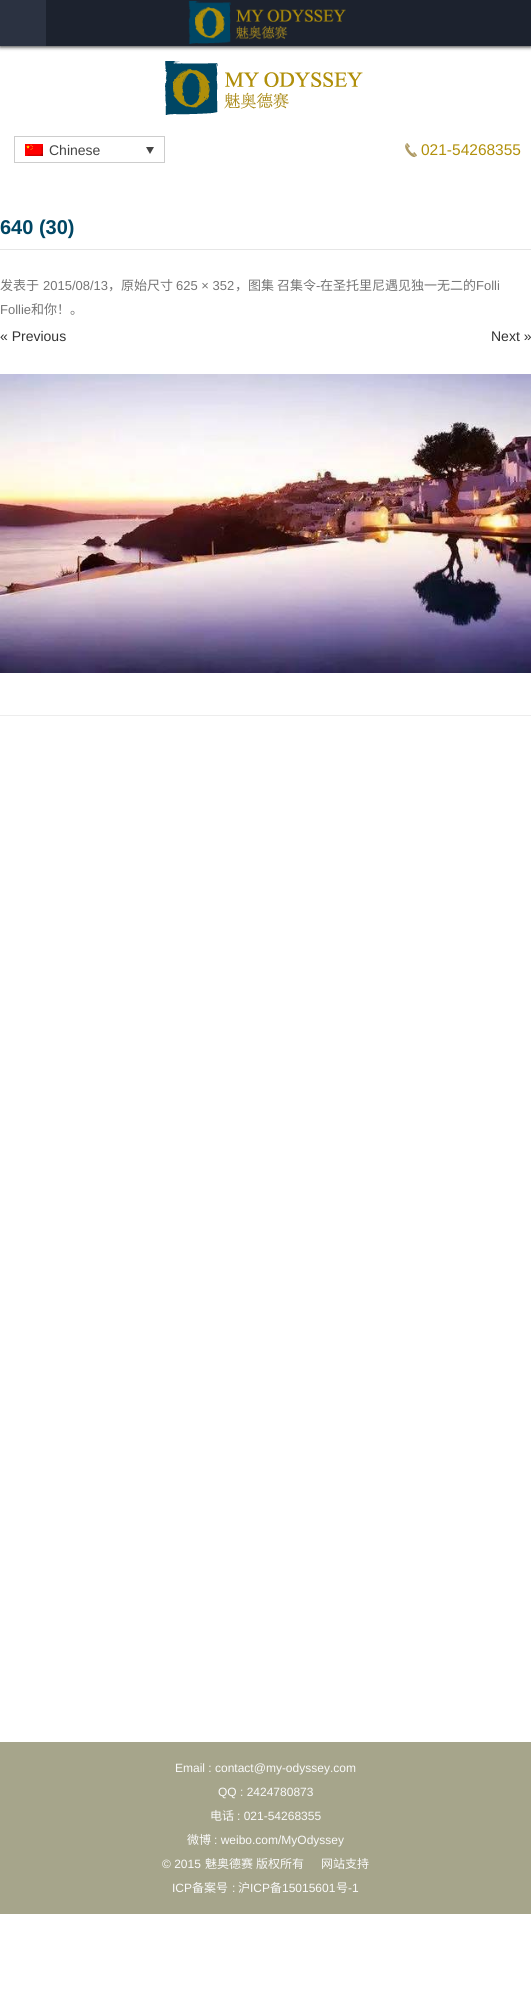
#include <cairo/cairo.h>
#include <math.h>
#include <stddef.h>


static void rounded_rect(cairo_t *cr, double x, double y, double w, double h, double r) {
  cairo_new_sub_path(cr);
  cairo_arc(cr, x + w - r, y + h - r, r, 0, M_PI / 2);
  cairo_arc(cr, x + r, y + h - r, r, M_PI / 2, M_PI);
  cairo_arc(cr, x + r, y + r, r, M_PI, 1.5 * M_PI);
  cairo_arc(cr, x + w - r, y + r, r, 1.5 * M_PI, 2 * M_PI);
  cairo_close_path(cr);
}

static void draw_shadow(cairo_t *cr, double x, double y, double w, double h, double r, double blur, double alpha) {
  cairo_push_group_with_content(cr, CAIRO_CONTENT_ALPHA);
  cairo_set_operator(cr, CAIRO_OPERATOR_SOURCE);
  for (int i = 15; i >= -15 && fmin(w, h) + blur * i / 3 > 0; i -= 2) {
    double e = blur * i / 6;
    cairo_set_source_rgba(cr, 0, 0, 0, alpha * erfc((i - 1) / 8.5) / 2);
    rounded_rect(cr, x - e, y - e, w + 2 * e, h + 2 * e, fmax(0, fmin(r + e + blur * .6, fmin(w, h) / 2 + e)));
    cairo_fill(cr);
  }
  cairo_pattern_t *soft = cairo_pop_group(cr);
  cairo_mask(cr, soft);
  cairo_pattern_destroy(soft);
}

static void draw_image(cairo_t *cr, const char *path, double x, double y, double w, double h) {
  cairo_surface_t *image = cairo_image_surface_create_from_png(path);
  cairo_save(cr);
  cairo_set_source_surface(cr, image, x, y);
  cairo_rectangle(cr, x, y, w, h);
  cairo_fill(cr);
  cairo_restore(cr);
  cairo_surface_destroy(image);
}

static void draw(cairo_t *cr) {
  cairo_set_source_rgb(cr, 1, 1, 1);
  cairo_paint(cr);
  cairo_set_source_rgb(cr, 0, 0, 0);
  draw_shadow(cr, 0, 1, 531, 46, 0, 2, 0.8);
  cairo_set_source_rgb(cr, 28 / 255.0, 34 / 255.0, 46 / 255.0);
  cairo_rectangle(cr, 46, 0, 485, 46);
  cairo_fill(cr);
  cairo_set_source_rgb(cr, 43 / 255.0, 50 / 255.0, 65 / 255.0);
  cairo_rectangle(cr, 0, 0, 46, 46);
  cairo_fill(cr);
  draw_image(cr, "images/1.png", 188, 0, 158, 44);
  draw_image(cr, "images/2.png", 165, 61, 198, 54);
  cairo_rectangle(cr, 14.5, 136.5, 150, 26);
  cairo_set_source_rgb(cr, 205 / 255.0, 205 / 255.0, 205 / 255.0);
  cairo_set_line_width(cr, 1);
  cairo_stroke(cr);
  draw_image(cr, "images/3.png", 25, 144, 18, 12);
  cairo_set_source_rgb(cr, 68 / 255.0, 68 / 255.0, 68 / 255.0);
  cairo_new_path(cr);
  cairo_move_to(cr, 146, 147);
  cairo_line_to(cr, 154, 147);
  cairo_line_to(cr, 150, 154);
  cairo_close_path(cr);
  cairo_fill(cr);
  draw_image(cr, "images/4.png", 405, 143, 12, 15);
  cairo_set_source_rgb(cr, 237 / 255.0, 237 / 255.0, 237 / 255.0);
  cairo_rectangle(cr, 0, 715, 531, 1);
  cairo_fill(cr);
  cairo_set_source_rgb(cr, 230 / 255.0, 230 / 255.0, 230 / 255.0);
  cairo_rectangle(cr, 0, 249, 531, 1);
  cairo_fill(cr);
  draw_image(cr, "images/5.png", 0, 374, 531, 299);
  cairo_set_source_rgb(cr, 166 / 255.0, 165 / 255.0, 139 / 255.0);
  cairo_rectangle(cr, 0, 1742, 531, 172);
  cairo_fill(cr);
  cairo_select_font_face(cr, "Liberation Sans", CAIRO_FONT_SLANT_NORMAL, CAIRO_FONT_WEIGHT_NORMAL);
  cairo_set_font_size(cr, 14);
  cairo_set_source_rgb(cr, 68 / 255.0, 68 / 255.0, 68 / 255.0);
  cairo_move_to(cr, 49, 155);
  cairo_show_text(cr, "Chinese");
  cairo_set_font_size(cr, 15.5);
  cairo_set_source_rgb(cr, 177 / 255.0, 144 / 255.0, 11 / 255.0);
  cairo_move_to(cr, 421, 155);
  cairo_show_text(cr, "021-54268355");
  cairo_select_font_face(cr, "Liberation Sans", CAIRO_FONT_SLANT_NORMAL, CAIRO_FONT_WEIGHT_BOLD);
  cairo_set_font_size(cr, 20);
  cairo_set_source_rgb(cr, 0, 70 / 255.0, 100 / 255.0);
  cairo_move_to(cr, 0, 234);
  cairo_show_text(cr, "640 (30)");
  cairo_select_font_face(cr, "Noto Sans CJK SC", CAIRO_FONT_SLANT_NORMAL, CAIRO_FONT_WEIGHT_NORMAL);
  cairo_set_font_size(cr, 13);
  cairo_set_source_rgb(cr, 117 / 255.0, 117 / 255.0, 117 / 255.0);
  cairo_move_to(cr, 0, 290);
  cairo_show_text(cr, "发表于");
  cairo_select_font_face(cr, "Liberation Sans", CAIRO_FONT_SLANT_NORMAL, CAIRO_FONT_WEIGHT_NORMAL);
  cairo_move_to(cr, 43, 290);
  cairo_show_text(cr, "2015/08/13");
  cairo_select_font_face(cr, "Noto Sans CJK SC", CAIRO_FONT_SLANT_NORMAL, CAIRO_FONT_WEIGHT_NORMAL);
  cairo_move_to(cr, 108, 290);
  cairo_show_text(cr, "，原始尺寸");
  cairo_select_font_face(cr, "Liberation Sans", CAIRO_FONT_SLANT_NORMAL, CAIRO_FONT_WEIGHT_NORMAL);
  cairo_move_to(cr, 176, 290);
  cairo_show_text(cr, "625 × 352");
  cairo_select_font_face(cr, "Noto Sans CJK SC", CAIRO_FONT_SLANT_NORMAL, CAIRO_FONT_WEIGHT_NORMAL);
  cairo_move_to(cr, 235, 290);
  cairo_show_text(cr, "，图集");
  cairo_move_to(cr, 277, 290);
  cairo_show_text(cr, "召集令");
  cairo_select_font_face(cr, "Liberation Sans", CAIRO_FONT_SLANT_NORMAL, CAIRO_FONT_WEIGHT_NORMAL);
  cairo_move_to(cr, 316, 290);
  cairo_show_text(cr, "-");
  cairo_select_font_face(cr, "Noto Sans CJK SC", CAIRO_FONT_SLANT_NORMAL, CAIRO_FONT_WEIGHT_NORMAL);
  cairo_move_to(cr, 320, 290);
  cairo_show_text(cr, "在圣托里尼遇见独一无二的");
  cairo_select_font_face(cr, "Liberation Sans", CAIRO_FONT_SLANT_NORMAL, CAIRO_FONT_WEIGHT_NORMAL);
  cairo_move_to(cr, 476, 290);
  cairo_show_text(cr, "Folli");
  cairo_move_to(cr, 0, 314);
  cairo_show_text(cr, "Follie");
  cairo_select_font_face(cr, "Noto Sans CJK SC", CAIRO_FONT_SLANT_NORMAL, CAIRO_FONT_WEIGHT_NORMAL);
  cairo_move_to(cr, 31, 314);
  cairo_show_text(cr, "和你！。");
  cairo_select_font_face(cr, "Liberation Sans", CAIRO_FONT_SLANT_NORMAL, CAIRO_FONT_WEIGHT_NORMAL);
  cairo_set_font_size(cr, 14);
  cairo_set_source_rgb(cr, 51 / 255.0, 51 / 255.0, 51 / 255.0);
  cairo_move_to(cr, 0, 341);
  cairo_show_text(cr, "« Previous");
  cairo_move_to(cr, 491, 341);
  cairo_show_text(cr, "Next »");
  cairo_set_font_size(cr, 12);
  cairo_set_source_rgb(cr, 250 / 255.0, 250 / 255.0, 250 / 255.0);
  cairo_move_to(cr, 175, 1772);
  cairo_show_text(cr, "Email : contact@my-odyssey.com");
  cairo_move_to(cr, 218, 1796);
  cairo_show_text(cr, "QQ : 2424780873");
  cairo_select_font_face(cr, "Noto Sans CJK SC", CAIRO_FONT_SLANT_NORMAL, CAIRO_FONT_WEIGHT_NORMAL);
  cairo_move_to(cr, 210, 1820);
  cairo_show_text(cr, "电话");
  cairo_select_font_face(cr, "Liberation Sans", CAIRO_FONT_SLANT_NORMAL, CAIRO_FONT_WEIGHT_NORMAL);
  cairo_move_to(cr, 237, 1820);
  cairo_show_text(cr, ": 021-54268355");
  cairo_select_font_face(cr, "Noto Sans CJK SC", CAIRO_FONT_SLANT_NORMAL, CAIRO_FONT_WEIGHT_NORMAL);
  cairo_move_to(cr, 187, 1844);
  cairo_show_text(cr, "微博");
  cairo_select_font_face(cr, "Liberation Sans", CAIRO_FONT_SLANT_NORMAL, CAIRO_FONT_WEIGHT_NORMAL);
  cairo_move_to(cr, 214, 1844);
  cairo_show_text(cr, ": weibo.com/MyOdyssey");
  cairo_move_to(cr, 162, 1868);
  cairo_show_text(cr, "© 2015");
  cairo_select_font_face(cr, "Noto Sans CJK SC", CAIRO_FONT_SLANT_NORMAL, CAIRO_FONT_WEIGHT_NORMAL);
  cairo_move_to(cr, 205, 1868);
  cairo_show_text(cr, "魅奥德赛");
  cairo_move_to(cr, 256, 1868);
  cairo_show_text(cr, "版权所有");
  cairo_move_to(cr, 321, 1868);
  cairo_show_text(cr, "网站支持");
  cairo_select_font_face(cr, "Liberation Sans", CAIRO_FONT_SLANT_NORMAL, CAIRO_FONT_WEIGHT_NORMAL);
  cairo_move_to(cr, 172, 1892);
  cairo_show_text(cr, "ICP");
  cairo_select_font_face(cr, "Noto Sans CJK SC", CAIRO_FONT_SLANT_NORMAL, CAIRO_FONT_WEIGHT_NORMAL);
  cairo_move_to(cr, 192, 1892);
  cairo_show_text(cr, "备案号");
  cairo_select_font_face(cr, "Liberation Sans", CAIRO_FONT_SLANT_NORMAL, CAIRO_FONT_WEIGHT_NORMAL);
  cairo_move_to(cr, 232, 1892);
  cairo_show_text(cr, ":");
  cairo_select_font_face(cr, "Noto Sans CJK SC", CAIRO_FONT_SLANT_NORMAL, CAIRO_FONT_WEIGHT_NORMAL);
  cairo_move_to(cr, 238, 1892);
  cairo_show_text(cr, "沪");
  cairo_select_font_face(cr, "Liberation Sans", CAIRO_FONT_SLANT_NORMAL, CAIRO_FONT_WEIGHT_NORMAL);
  cairo_move_to(cr, 250, 1892);
  cairo_show_text(cr, "ICP");
  cairo_select_font_face(cr, "Noto Sans CJK SC", CAIRO_FONT_SLANT_NORMAL, CAIRO_FONT_WEIGHT_NORMAL);
  cairo_move_to(cr, 270, 1892);
  cairo_show_text(cr, "备");
  cairo_select_font_face(cr, "Liberation Sans", CAIRO_FONT_SLANT_NORMAL, CAIRO_FONT_WEIGHT_NORMAL);
  cairo_move_to(cr, 282, 1892);
  cairo_show_text(cr, "15015601");
  cairo_select_font_face(cr, "Noto Sans CJK SC", CAIRO_FONT_SLANT_NORMAL, CAIRO_FONT_WEIGHT_NORMAL);
  cairo_move_to(cr, 336, 1892);
  cairo_show_text(cr, "号");
  cairo_select_font_face(cr, "Liberation Sans", CAIRO_FONT_SLANT_NORMAL, CAIRO_FONT_WEIGHT_NORMAL);
  cairo_move_to(cr, 348, 1892);
  cairo_show_text(cr, "-1");
}

int main(void) {
  cairo_surface_t *surface = cairo_image_surface_create(CAIRO_FORMAT_RGB24, 531, 1989);
  cairo_t *cr = cairo_create(surface);
  cairo_font_options_t *options = cairo_font_options_create();
  cairo_font_options_set_hint_metrics(options, CAIRO_HINT_METRICS_OFF);
  cairo_font_options_set_hint_style(options, CAIRO_HINT_STYLE_NONE);
  cairo_set_font_options(cr, options);
  cairo_set_miter_limit(cr, 4);
  draw(cr);
  cairo_surface_write_to_png(surface, "out.png");
  cairo_font_options_destroy(options);
  cairo_destroy(cr);
  cairo_surface_destroy(surface);
  return 0;
}
